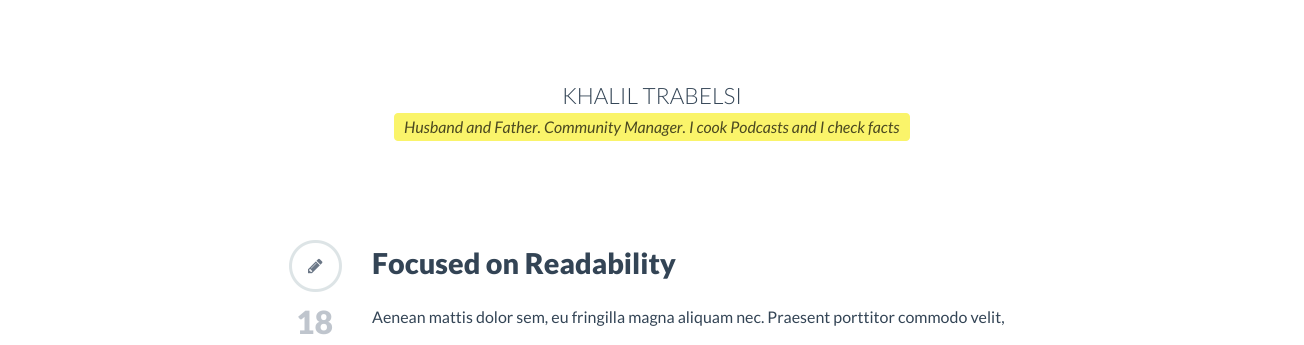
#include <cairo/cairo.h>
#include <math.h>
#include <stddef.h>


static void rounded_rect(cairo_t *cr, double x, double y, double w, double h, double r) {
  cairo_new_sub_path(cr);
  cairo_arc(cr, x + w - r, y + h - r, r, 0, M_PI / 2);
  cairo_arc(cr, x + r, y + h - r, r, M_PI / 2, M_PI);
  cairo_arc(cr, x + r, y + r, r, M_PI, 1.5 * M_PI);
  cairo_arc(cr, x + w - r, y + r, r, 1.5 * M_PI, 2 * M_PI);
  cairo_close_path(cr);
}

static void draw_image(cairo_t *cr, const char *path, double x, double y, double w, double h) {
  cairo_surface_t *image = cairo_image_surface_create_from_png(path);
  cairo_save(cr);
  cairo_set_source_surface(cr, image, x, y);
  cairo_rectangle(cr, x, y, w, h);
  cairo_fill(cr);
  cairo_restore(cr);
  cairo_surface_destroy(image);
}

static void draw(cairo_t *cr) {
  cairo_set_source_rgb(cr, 1, 1, 1);
  cairo_paint(cr);
  cairo_set_source_rgb(cr, 250 / 255.0, 244 / 255.0, 106 / 255.0);
  rounded_rect(cr, 394, 113, 516, 28, 4);
  cairo_fill(cr);
  rounded_rect(cr, 290.5, 241.5, 50, 49, 24.5);
  cairo_set_source_rgb(cr, 221 / 255.0, 228 / 255.0, 230 / 255.0);
  cairo_set_line_width(cr, 3);
  cairo_stroke(cr);
  draw_image(cr, "images/1.png", 308, 258, 15, 16);
  cairo_select_font_face(cr, "Lato Light", CAIRO_FONT_SLANT_NORMAL, CAIRO_FONT_WEIGHT_NORMAL);
  cairo_set_font_size(cr, 22.5);
  cairo_set_source_rgb(cr, 51 / 255.0, 68 / 255.0, 85 / 255.0);
  cairo_move_to(cr, 562, 104);
  cairo_show_text(cr, "KHALIL TRABELSI");
  cairo_select_font_face(cr, "Lato", CAIRO_FONT_SLANT_ITALIC, CAIRO_FONT_WEIGHT_NORMAL);
  cairo_set_font_size(cr, 16);
  cairo_set_source_rgb(cr, 75 / 255.0, 73 / 255.0, 32 / 255.0);
  cairo_move_to(cr, 404, 133);
  cairo_show_text(cr, "Husband and Father. Community Manager. I cook Podcasts and I check facts");
  cairo_select_font_face(cr, "Lato Black", CAIRO_FONT_SLANT_NORMAL, CAIRO_FONT_WEIGHT_NORMAL);
  cairo_set_font_size(cr, 28.75);
  cairo_set_source_rgb(cr, 51 / 255.0, 68 / 255.0, 85 / 255.0);
  cairo_move_to(cr, 372, 274);
  cairo_show_text(cr, "Focused on Readability");
  cairo_set_font_size(cr, 32);
  cairo_set_source_rgb(cr, 191 / 255.0, 197 / 255.0, 205 / 255.0);
  cairo_move_to(cr, 296, 334);
  cairo_show_text(cr, "18");
  cairo_select_font_face(cr, "Lato", CAIRO_FONT_SLANT_NORMAL, CAIRO_FONT_WEIGHT_NORMAL);
  cairo_set_font_size(cr, 16);
  cairo_set_source_rgb(cr, 51 / 255.0, 68 / 255.0, 85 / 255.0);
  cairo_move_to(cr, 372, 323);
  cairo_show_text(cr, "Aenean mattis dolor sem, eu fringilla magna aliquam nec. Praesent porttitor commodo velit,");
}

int main(void) {
  cairo_surface_t *surface = cairo_image_surface_create(CAIRO_FORMAT_RGB24, 1304, 345);
  cairo_t *cr = cairo_create(surface);
  cairo_font_options_t *options = cairo_font_options_create();
  cairo_font_options_set_hint_metrics(options, CAIRO_HINT_METRICS_OFF);
  cairo_font_options_set_hint_style(options, CAIRO_HINT_STYLE_NONE);
  cairo_set_font_options(cr, options);
  cairo_set_miter_limit(cr, 4);
  draw(cr);
  cairo_surface_write_to_png(surface, "out.png");
  cairo_font_options_destroy(options);
  cairo_destroy(cr);
  cairo_surface_destroy(surface);
  return 0;
}
